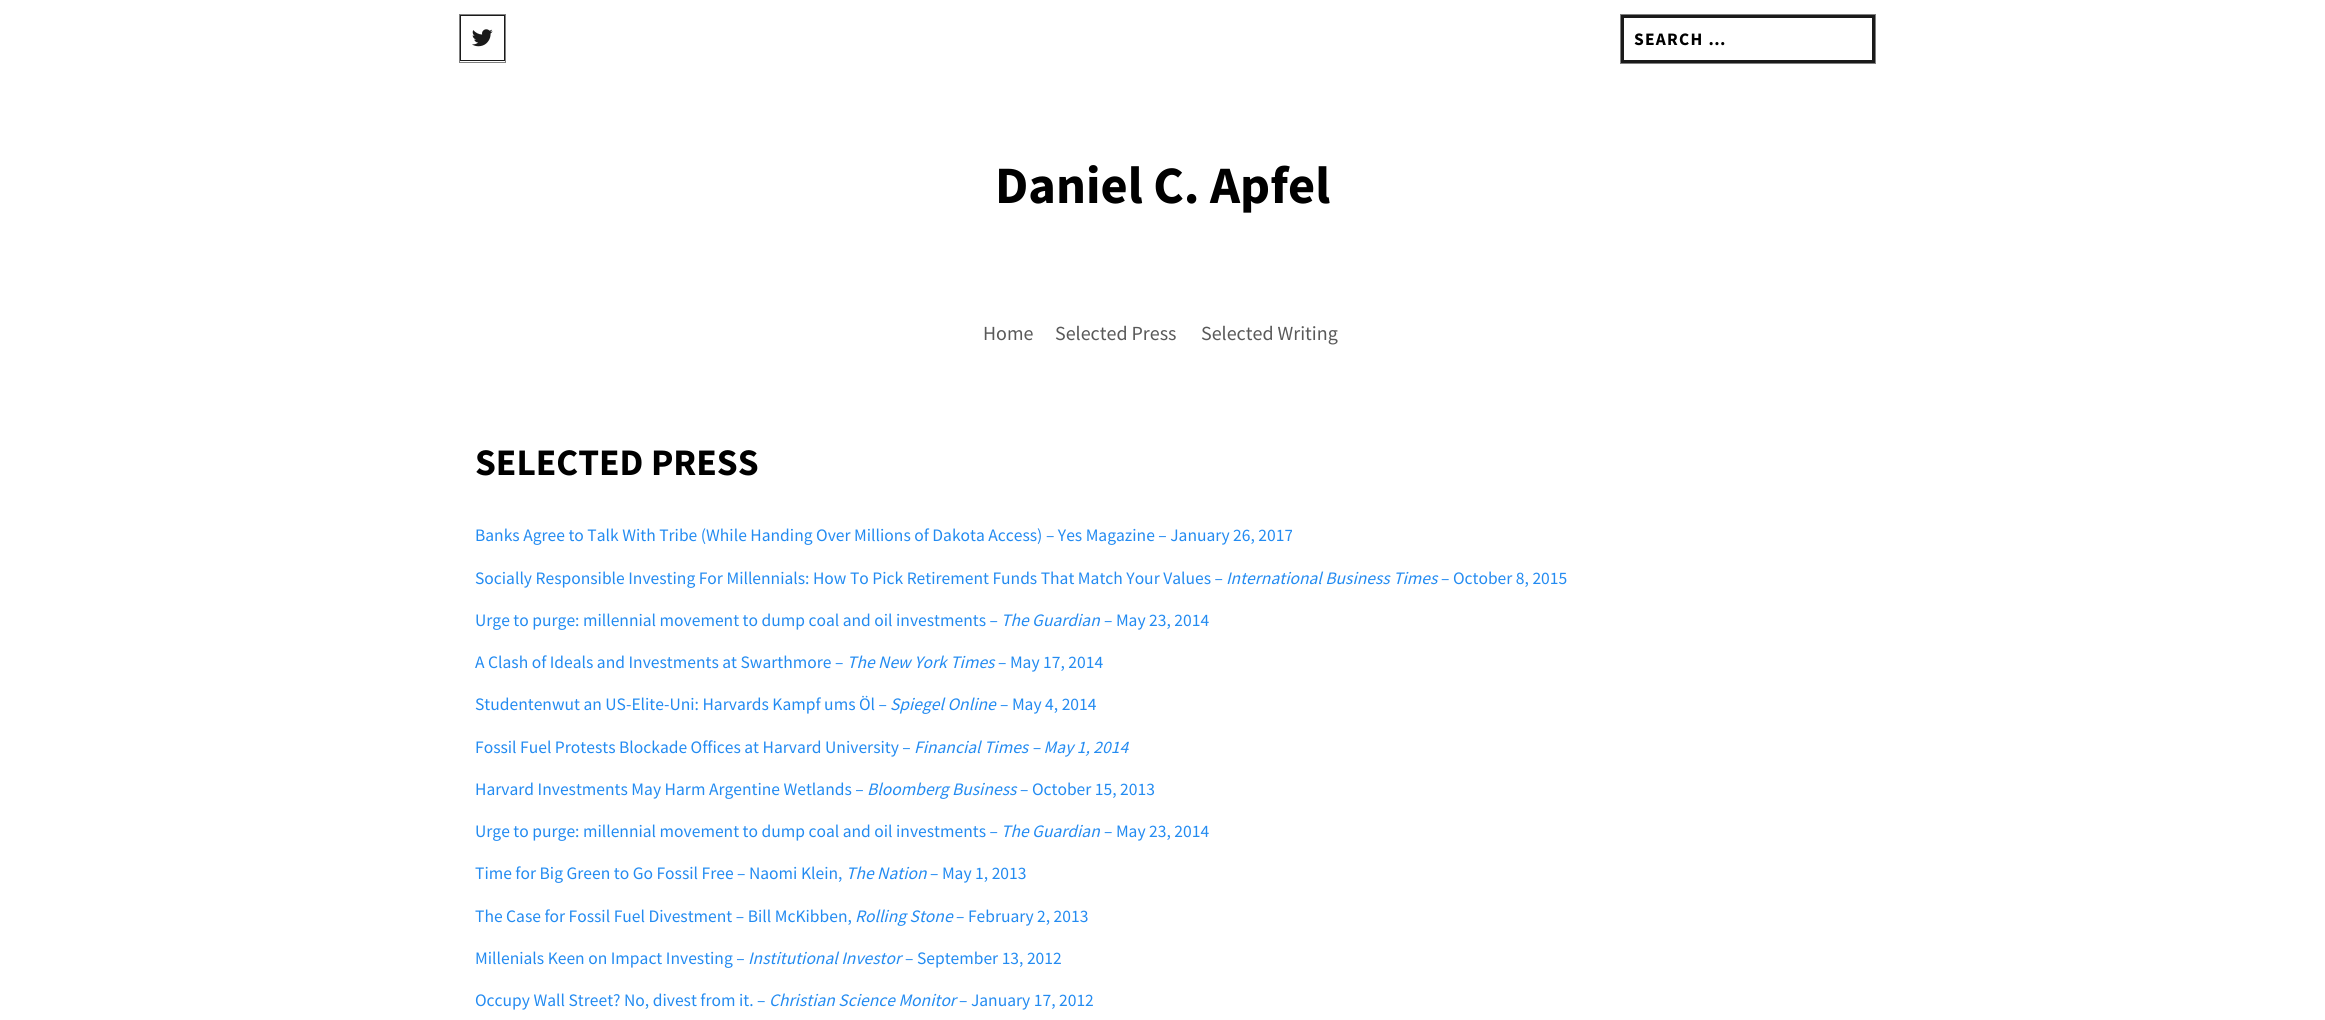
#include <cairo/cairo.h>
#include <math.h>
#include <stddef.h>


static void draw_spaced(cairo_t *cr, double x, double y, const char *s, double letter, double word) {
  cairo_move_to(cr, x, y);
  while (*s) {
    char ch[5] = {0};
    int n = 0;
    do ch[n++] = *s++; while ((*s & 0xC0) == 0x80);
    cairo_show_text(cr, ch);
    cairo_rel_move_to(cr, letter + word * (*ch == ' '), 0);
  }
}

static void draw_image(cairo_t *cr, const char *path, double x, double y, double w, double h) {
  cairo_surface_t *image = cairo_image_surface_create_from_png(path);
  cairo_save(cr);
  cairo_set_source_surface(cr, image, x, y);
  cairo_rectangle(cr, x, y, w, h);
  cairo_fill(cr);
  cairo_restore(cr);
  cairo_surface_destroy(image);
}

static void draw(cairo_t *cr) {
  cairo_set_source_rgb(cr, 1, 1, 1);
  cairo_paint(cr);
  cairo_rectangle(cr, 460.5, 15.5, 44, 45);
  cairo_set_source_rgb(cr, 26 / 255.0, 26 / 255.0, 26 / 255.0);
  cairo_set_line_width(cr, 1);
  cairo_stroke(cr);
  draw_image(cr, "images/1.png", 472, 29, 21, 18);
  cairo_rectangle(cr, 459.5, 14.5, 46, 48);
  cairo_set_source_rgb(cr, 128 / 255.0, 128 / 255.0, 128 / 255.0);
  cairo_stroke(cr);
  cairo_rectangle(cr, 1622.5, 16.5, 251, 45);
  cairo_set_source_rgb(cr, 26 / 255.0, 26 / 255.0, 26 / 255.0);
  cairo_set_line_width(cr, 3);
  cairo_stroke(cr);
  cairo_rectangle(cr, 1620.5, 14.5, 255, 49);
  cairo_set_source_rgb(cr, 128 / 255.0, 128 / 255.0, 128 / 255.0);
  cairo_set_line_width(cr, 1);
  cairo_stroke(cr);
  cairo_select_font_face(cr, "Source Sans Pro", CAIRO_FONT_SLANT_NORMAL, CAIRO_FONT_WEIGHT_BOLD);
  cairo_set_font_size(cr, 17.5);
  cairo_set_source_rgb(cr, 0, 0, 0);
  draw_spaced(cr, 1634, 45, "SEARCH …", 1.25, 0);
  cairo_set_font_size(cr, 52.5);
  cairo_move_to(cr, 995, 203);
  cairo_show_text(cr, "Daniel C. Apfel");
  cairo_select_font_face(cr, "Source Sans Pro", CAIRO_FONT_SLANT_NORMAL, CAIRO_FONT_WEIGHT_NORMAL);
  cairo_set_font_size(cr, 20);
  cairo_set_source_rgb(cr, 89 / 255.0, 89 / 255.0, 89 / 255.0);
  cairo_move_to(cr, 983, 340);
  cairo_show_text(cr, "Home");
  cairo_move_to(cr, 1055, 340);
  cairo_show_text(cr, "Selected Press");
  cairo_move_to(cr, 1201, 340);
  cairo_show_text(cr, "Selected Writing");
  cairo_select_font_face(cr, "Source Sans Pro", CAIRO_FONT_SLANT_NORMAL, CAIRO_FONT_WEIGHT_BOLD);
  cairo_set_font_size(cr, 37.5);
  cairo_set_source_rgb(cr, 0, 0, 0);
  cairo_move_to(cr, 475, 475);
  cairo_show_text(cr, "SELECTED PRESS");
  cairo_select_font_face(cr, "Source Sans Pro", CAIRO_FONT_SLANT_NORMAL, CAIRO_FONT_WEIGHT_NORMAL);
  cairo_set_font_size(cr, 17.5);
  cairo_set_source_rgb(cr, 35 / 255.0, 139 / 255.0, 241 / 255.0);
  cairo_move_to(cr, 475, 541);
  cairo_show_text(cr, "Banks Agree to Talk With Tribe (While Handing Over Millions of Dakota Access) – Yes Magazine – January 26, 2017");
  cairo_move_to(cr, 475, 584);
  cairo_show_text(cr, "Socially Responsible Investing For Millennials: How To Pick Retirement Funds That Match Your Values –");
  cairo_select_font_face(cr, "Source Sans Pro", CAIRO_FONT_SLANT_ITALIC, CAIRO_FONT_WEIGHT_NORMAL);
  cairo_move_to(cr, 1226, 584);
  cairo_show_text(cr, "International Business Times");
  cairo_select_font_face(cr, "Source Sans Pro", CAIRO_FONT_SLANT_NORMAL, CAIRO_FONT_WEIGHT_NORMAL);
  cairo_move_to(cr, 1441, 584);
  cairo_show_text(cr, "– October 8, 2015");
  cairo_move_to(cr, 475, 626);
  cairo_show_text(cr, "Urge to purge: millennial movement to dump coal and oil investments –");
  cairo_select_font_face(cr, "Source Sans Pro", CAIRO_FONT_SLANT_ITALIC, CAIRO_FONT_WEIGHT_NORMAL);
  cairo_move_to(cr, 1001, 626);
  cairo_show_text(cr, "The Guardian");
  cairo_select_font_face(cr, "Source Sans Pro", CAIRO_FONT_SLANT_NORMAL, CAIRO_FONT_WEIGHT_NORMAL);
  cairo_move_to(cr, 1104, 626);
  cairo_show_text(cr, "– May 23, 2014");
  cairo_move_to(cr, 475, 668);
  cairo_show_text(cr, "A Clash of Ideals and Investments at Swarthmore –");
  cairo_select_font_face(cr, "Source Sans Pro", CAIRO_FONT_SLANT_ITALIC, CAIRO_FONT_WEIGHT_NORMAL);
  cairo_move_to(cr, 847, 668);
  cairo_show_text(cr, "The New York Times");
  cairo_select_font_face(cr, "Source Sans Pro", CAIRO_FONT_SLANT_NORMAL, CAIRO_FONT_WEIGHT_NORMAL);
  cairo_move_to(cr, 998, 668);
  cairo_show_text(cr, "– May 17, 2014");
  cairo_move_to(cr, 475, 710);
  cairo_show_text(cr, "Studentenwut an US-Elite-Uni: Harvards Kampf ums Öl –");
  cairo_select_font_face(cr, "Source Sans Pro", CAIRO_FONT_SLANT_ITALIC, CAIRO_FONT_WEIGHT_NORMAL);
  cairo_move_to(cr, 890, 710);
  cairo_show_text(cr, "Spiegel Online");
  cairo_select_font_face(cr, "Source Sans Pro", CAIRO_FONT_SLANT_NORMAL, CAIRO_FONT_WEIGHT_NORMAL);
  cairo_move_to(cr, 1000, 710);
  cairo_show_text(cr, "– May 4, 2014");
  cairo_move_to(cr, 475, 753);
  cairo_show_text(cr, "Fossil Fuel Protests Blockade Offices at Harvard University –");
  cairo_select_font_face(cr, "Source Sans Pro", CAIRO_FONT_SLANT_ITALIC, CAIRO_FONT_WEIGHT_NORMAL);
  cairo_move_to(cr, 914, 753);
  cairo_show_text(cr, "Financial Times – May 1, 2014");
  cairo_select_font_face(cr, "Source Sans Pro", CAIRO_FONT_SLANT_NORMAL, CAIRO_FONT_WEIGHT_NORMAL);
  cairo_move_to(cr, 475, 795);
  cairo_show_text(cr, "Harvard Investments May Harm Argentine Wetlands –");
  cairo_select_font_face(cr, "Source Sans Pro", CAIRO_FONT_SLANT_ITALIC, CAIRO_FONT_WEIGHT_NORMAL);
  cairo_move_to(cr, 867, 795);
  cairo_show_text(cr, "Bloomberg Business");
  cairo_select_font_face(cr, "Source Sans Pro", CAIRO_FONT_SLANT_NORMAL, CAIRO_FONT_WEIGHT_NORMAL);
  cairo_move_to(cr, 1020, 795);
  cairo_show_text(cr, "– October 15, 2013");
  cairo_move_to(cr, 475, 837);
  cairo_show_text(cr, "Urge to purge: millennial movement to dump coal and oil investments –");
  cairo_select_font_face(cr, "Source Sans Pro", CAIRO_FONT_SLANT_ITALIC, CAIRO_FONT_WEIGHT_NORMAL);
  cairo_move_to(cr, 1001, 837);
  cairo_show_text(cr, "The Guardian");
  cairo_select_font_face(cr, "Source Sans Pro", CAIRO_FONT_SLANT_NORMAL, CAIRO_FONT_WEIGHT_NORMAL);
  cairo_move_to(cr, 1104, 837);
  cairo_show_text(cr, "– May 23, 2014");
  cairo_move_to(cr, 475, 879);
  cairo_show_text(cr, "Time for Big Green to Go Fossil Free – Naomi Klein,");
  cairo_select_font_face(cr, "Source Sans Pro", CAIRO_FONT_SLANT_ITALIC, CAIRO_FONT_WEIGHT_NORMAL);
  cairo_move_to(cr, 846, 879);
  cairo_show_text(cr, "The Nation");
  cairo_select_font_face(cr, "Source Sans Pro", CAIRO_FONT_SLANT_NORMAL, CAIRO_FONT_WEIGHT_NORMAL);
  cairo_move_to(cr, 930, 879);
  cairo_show_text(cr, "– May 1, 2013");
  cairo_move_to(cr, 475, 922);
  cairo_show_text(cr, "The Case for Fossil Fuel Divestment – Bill McKibben,");
  cairo_select_font_face(cr, "Source Sans Pro", CAIRO_FONT_SLANT_ITALIC, CAIRO_FONT_WEIGHT_NORMAL);
  cairo_move_to(cr, 855, 922);
  cairo_show_text(cr, "Rolling Stone");
  cairo_select_font_face(cr, "Source Sans Pro", CAIRO_FONT_SLANT_NORMAL, CAIRO_FONT_WEIGHT_NORMAL);
  cairo_move_to(cr, 956, 922);
  cairo_show_text(cr, "– February 2, 2013");
  cairo_move_to(cr, 475, 964);
  cairo_show_text(cr, "Millenials Keen on Impact Investing –");
  cairo_select_font_face(cr, "Source Sans Pro", CAIRO_FONT_SLANT_ITALIC, CAIRO_FONT_WEIGHT_NORMAL);
  cairo_move_to(cr, 748, 964);
  cairo_show_text(cr, "Institutional Investor");
  cairo_select_font_face(cr, "Source Sans Pro", CAIRO_FONT_SLANT_NORMAL, CAIRO_FONT_WEIGHT_NORMAL);
  cairo_move_to(cr, 905, 964);
  cairo_show_text(cr, "– September 13, 2012");
  cairo_move_to(cr, 475, 1006);
  cairo_show_text(cr, "Occupy Wall Street? No, divest from it. –");
  cairo_select_font_face(cr, "Source Sans Pro", CAIRO_FONT_SLANT_ITALIC, CAIRO_FONT_WEIGHT_NORMAL);
  cairo_move_to(cr, 769, 1006);
  cairo_show_text(cr, "Christian Science Monitor");
  cairo_select_font_face(cr, "Source Sans Pro", CAIRO_FONT_SLANT_NORMAL, CAIRO_FONT_WEIGHT_NORMAL);
  cairo_move_to(cr, 959, 1006);
  cairo_show_text(cr, "– January 17, 2012");
}

int main(void) {
  cairo_surface_t *surface = cairo_image_surface_create(CAIRO_FORMAT_RGB24, 2325, 1020);
  cairo_t *cr = cairo_create(surface);
  cairo_font_options_t *options = cairo_font_options_create();
  cairo_font_options_set_hint_metrics(options, CAIRO_HINT_METRICS_OFF);
  cairo_font_options_set_hint_style(options, CAIRO_HINT_STYLE_NONE);
  cairo_set_font_options(cr, options);
  cairo_set_miter_limit(cr, 4);
  draw(cr);
  cairo_surface_write_to_png(surface, "out.png");
  cairo_font_options_destroy(options);
  cairo_destroy(cr);
  cairo_surface_destroy(surface);
  return 0;
}
